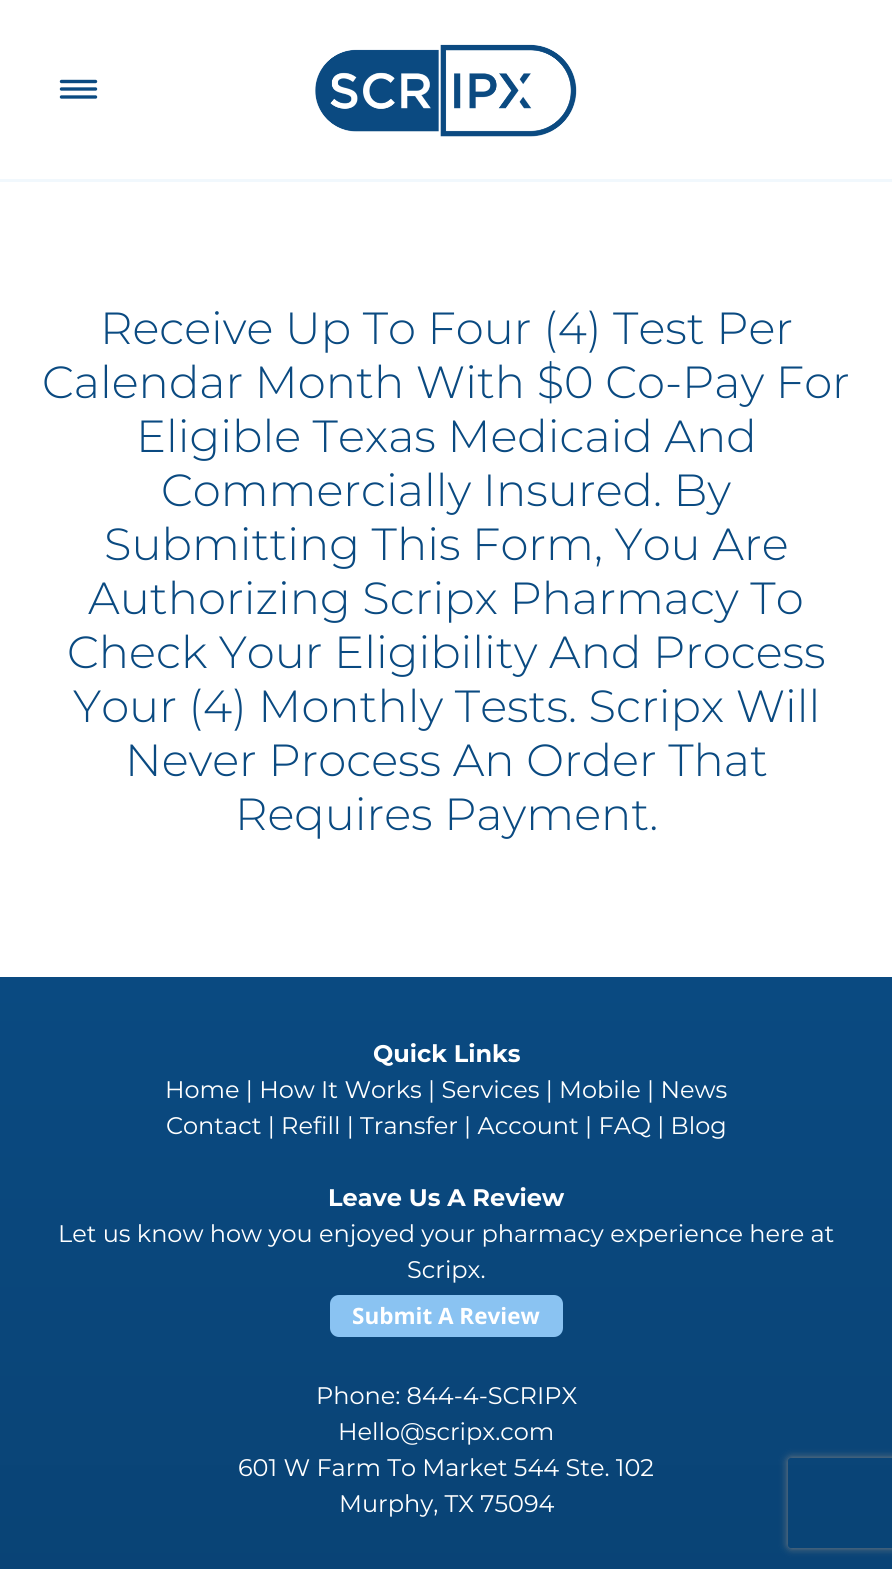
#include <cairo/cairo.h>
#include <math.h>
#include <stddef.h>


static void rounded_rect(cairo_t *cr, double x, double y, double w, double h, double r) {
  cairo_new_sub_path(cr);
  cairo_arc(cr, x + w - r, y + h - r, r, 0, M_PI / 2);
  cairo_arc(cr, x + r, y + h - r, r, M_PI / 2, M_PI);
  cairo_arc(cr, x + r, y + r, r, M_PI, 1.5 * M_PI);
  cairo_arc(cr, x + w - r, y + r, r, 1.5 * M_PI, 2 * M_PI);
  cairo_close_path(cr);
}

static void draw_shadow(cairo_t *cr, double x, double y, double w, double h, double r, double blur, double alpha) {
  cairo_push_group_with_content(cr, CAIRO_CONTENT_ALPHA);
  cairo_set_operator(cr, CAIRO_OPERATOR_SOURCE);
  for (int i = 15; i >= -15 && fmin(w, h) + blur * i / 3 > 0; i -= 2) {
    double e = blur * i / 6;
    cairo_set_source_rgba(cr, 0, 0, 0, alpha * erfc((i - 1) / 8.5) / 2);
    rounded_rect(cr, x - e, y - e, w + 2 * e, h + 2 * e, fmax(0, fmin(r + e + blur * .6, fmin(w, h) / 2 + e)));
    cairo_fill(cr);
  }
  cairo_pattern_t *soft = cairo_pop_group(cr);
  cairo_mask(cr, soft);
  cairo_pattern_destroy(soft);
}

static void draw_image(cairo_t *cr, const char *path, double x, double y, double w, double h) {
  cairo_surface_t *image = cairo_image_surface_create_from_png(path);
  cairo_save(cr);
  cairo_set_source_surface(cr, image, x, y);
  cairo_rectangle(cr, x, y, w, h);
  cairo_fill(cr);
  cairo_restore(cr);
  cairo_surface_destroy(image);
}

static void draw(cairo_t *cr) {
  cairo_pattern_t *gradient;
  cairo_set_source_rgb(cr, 1, 1, 1);
  cairo_paint(cr);
  cairo_new_path(cr);
  cairo_move_to(cr, 61.5, 81.5);
  cairo_line_to(cr, 95.5, 81.5);
  cairo_move_to(cr, 61.5, 89);
  cairo_line_to(cr, 95.5, 89);
  cairo_move_to(cr, 61.5, 97);
  cairo_line_to(cr, 95.5, 97);
  cairo_set_source_rgb(cr, 10 / 255.0, 74 / 255.0, 129 / 255.0);
  cairo_set_line_width(cr, 3.4);
  cairo_set_line_cap(cr, CAIRO_LINE_CAP_ROUND);
  cairo_stroke(cr);
  draw_image(cr, "images/1.png", 315, 44, 262, 93);
  cairo_set_source_rgb(cr, 241 / 255.0, 248 / 255.0, 253 / 255.0);
  cairo_rectangle(cr, 0, 179, 892, 3);
  cairo_fill(cr);
  gradient = cairo_pattern_create_linear(446, 977, 446, 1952);
  cairo_pattern_add_color_stop_rgba(gradient, 0, 10 / 255.0, 74 / 255.0, 129 / 255.0, 1);
  cairo_pattern_add_color_stop_rgba(gradient, 1, 9 / 255.0, 63 / 255.0, 110 / 255.0, 1);
  cairo_set_source(cr, gradient);
  cairo_pattern_destroy(gradient);
  cairo_rectangle(cr, 0, 977, 892, 592);
  cairo_fill(cr);
  cairo_set_source_rgb(cr, 138 / 255.0, 195 / 255.0, 242 / 255.0);
  rounded_rect(cr, 330, 1295, 233, 42, 9);
  cairo_fill(cr);
  cairo_save(cr);
  cairo_set_fill_rule(cr, CAIRO_FILL_RULE_EVEN_ODD);
  cairo_new_path(cr);
  cairo_move_to(cr, 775, 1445);
  cairo_line_to(cr, 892, 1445);
  cairo_line_to(cr, 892, 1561);
  cairo_line_to(cr, 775, 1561);
  cairo_close_path(cr);
  cairo_move_to(cr, 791, 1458);
  cairo_line_to(cr, 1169, 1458);
  cairo_curve_to(cr, 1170.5, 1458, 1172, 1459.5, 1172, 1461);
  cairo_line_to(cr, 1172, 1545);
  cairo_curve_to(cr, 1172, 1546.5, 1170.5, 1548, 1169, 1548);
  cairo_line_to(cr, 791, 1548);
  cairo_curve_to(cr, 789.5, 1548, 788, 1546.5, 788, 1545);
  cairo_line_to(cr, 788, 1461);
  cairo_curve_to(cr, 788, 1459.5, 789.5, 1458, 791, 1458);
  cairo_close_path(cr);
  cairo_clip(cr);
  cairo_set_source_rgb(cr, 128 / 255.0, 128 / 255.0, 128 / 255.0);
  draw_shadow(cr, 788, 1458, 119, 90, 3, 4, 1);
  cairo_restore(cr);
  cairo_select_font_face(cr, "Montserrat Light", CAIRO_FONT_SLANT_NORMAL, CAIRO_FONT_WEIGHT_NORMAL);
  cairo_set_font_size(cr, 45);
  cairo_set_source_rgb(cr, 10 / 255.0, 74 / 255.0, 129 / 255.0);
  cairo_move_to(cr, 100, 344);
  cairo_show_text(cr, "Receive Up To Four (4) Test Per");
  cairo_move_to(cr, 42, 398);
  cairo_show_text(cr, "Calendar Month With $0 Co-Pay For");
  cairo_move_to(cr, 136, 452);
  cairo_show_text(cr, "Eligible Texas Medicaid And");
  cairo_move_to(cr, 161, 506);
  cairo_show_text(cr, "Commercially Insured. By");
  cairo_move_to(cr, 104, 560);
  cairo_show_text(cr, "Submitting This Form, You Are");
  cairo_move_to(cr, 88, 614);
  cairo_show_text(cr, "Authorizing Scripx Pharmacy To");
  cairo_move_to(cr, 67, 668);
  cairo_show_text(cr, "Check Your Eligibility And Process");
  cairo_move_to(cr, 73, 722);
  cairo_show_text(cr, "Your (4) Monthly Tests. Scripx Will");
  cairo_move_to(cr, 125, 776);
  cairo_show_text(cr, "Never Process An Order That");
  cairo_move_to(cr, 235, 830);
  cairo_show_text(cr, "Requires Payment.");
  cairo_select_font_face(cr, "Montserrat", CAIRO_FONT_SLANT_NORMAL, CAIRO_FONT_WEIGHT_BOLD);
  cairo_set_font_size(cr, 24);
  cairo_set_source_rgb(cr, 1, 1, 1);
  cairo_move_to(cr, 373, 1062);
  cairo_show_text(cr, "Quick Links");
  cairo_select_font_face(cr, "Montserrat", CAIRO_FONT_SLANT_NORMAL, CAIRO_FONT_WEIGHT_NORMAL);
  cairo_move_to(cr, 165, 1098);
  cairo_show_text(cr, "Home | How It Works | Services | Mobile | News");
  cairo_move_to(cr, 166, 1134);
  cairo_show_text(cr, "Contact | Refill | Transfer | Account | FAQ | Blog");
  cairo_select_font_face(cr, "Montserrat", CAIRO_FONT_SLANT_NORMAL, CAIRO_FONT_WEIGHT_BOLD);
  cairo_move_to(cr, 328, 1206);
  cairo_show_text(cr, "Leave Us A Review");
  cairo_select_font_face(cr, "Montserrat", CAIRO_FONT_SLANT_NORMAL, CAIRO_FONT_WEIGHT_NORMAL);
  cairo_move_to(cr, 58, 1242);
  cairo_show_text(cr, "Let us know how you enjoyed your pharmacy experience here at");
  cairo_move_to(cr, 407, 1278);
  cairo_show_text(cr, "Scripx.");
  cairo_select_font_face(cr, "Open Sans", CAIRO_FONT_SLANT_NORMAL, CAIRO_FONT_WEIGHT_BOLD);
  cairo_set_font_size(cr, 22.5);
  cairo_move_to(cr, 352, 1324);
  cairo_show_text(cr, "Submit A Review");
  cairo_select_font_face(cr, "Montserrat", CAIRO_FONT_SLANT_NORMAL, CAIRO_FONT_WEIGHT_NORMAL);
  cairo_set_font_size(cr, 24);
  cairo_move_to(cr, 316, 1404);
  cairo_show_text(cr, "Phone: 844-4-SCRIPX");
  cairo_move_to(cr, 338, 1440);
  cairo_show_text(cr, "Hello@scripx.com");
  cairo_move_to(cr, 238, 1476);
  cairo_show_text(cr, "601 W Farm To Market 544 Ste. 102");
  cairo_move_to(cr, 339, 1512);
  cairo_show_text(cr, "Murphy, TX 75094");
}

int main(void) {
  cairo_surface_t *surface = cairo_image_surface_create(CAIRO_FORMAT_RGB24, 892, 1569);
  cairo_t *cr = cairo_create(surface);
  cairo_font_options_t *options = cairo_font_options_create();
  cairo_font_options_set_hint_metrics(options, CAIRO_HINT_METRICS_OFF);
  cairo_font_options_set_hint_style(options, CAIRO_HINT_STYLE_NONE);
  cairo_set_font_options(cr, options);
  cairo_set_miter_limit(cr, 4);
  draw(cr);
  cairo_surface_write_to_png(surface, "out.png");
  cairo_font_options_destroy(options);
  cairo_destroy(cr);
  cairo_surface_destroy(surface);
  return 0;
}
